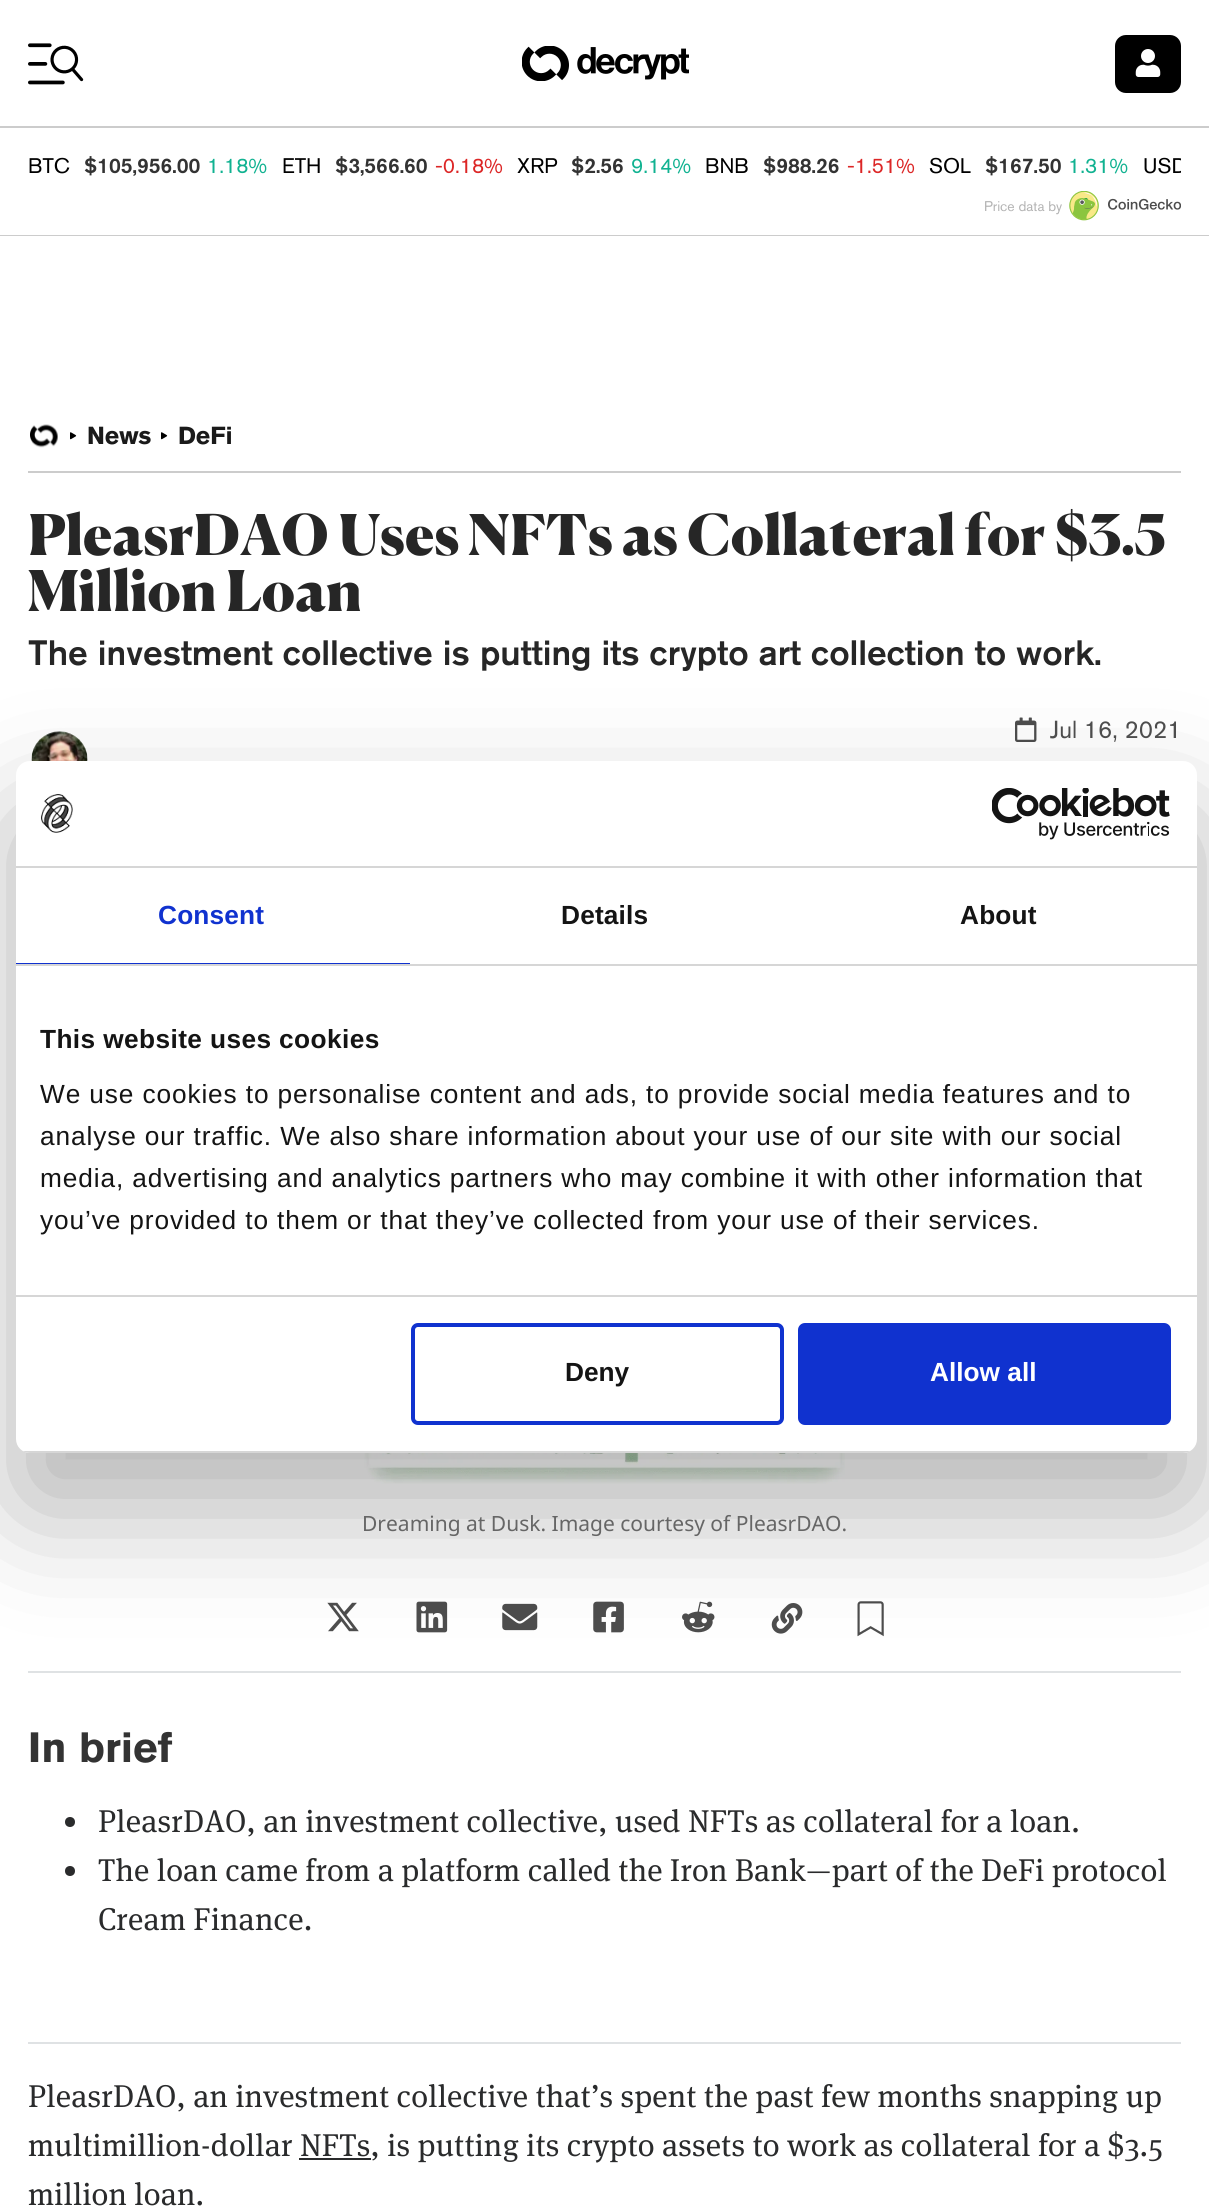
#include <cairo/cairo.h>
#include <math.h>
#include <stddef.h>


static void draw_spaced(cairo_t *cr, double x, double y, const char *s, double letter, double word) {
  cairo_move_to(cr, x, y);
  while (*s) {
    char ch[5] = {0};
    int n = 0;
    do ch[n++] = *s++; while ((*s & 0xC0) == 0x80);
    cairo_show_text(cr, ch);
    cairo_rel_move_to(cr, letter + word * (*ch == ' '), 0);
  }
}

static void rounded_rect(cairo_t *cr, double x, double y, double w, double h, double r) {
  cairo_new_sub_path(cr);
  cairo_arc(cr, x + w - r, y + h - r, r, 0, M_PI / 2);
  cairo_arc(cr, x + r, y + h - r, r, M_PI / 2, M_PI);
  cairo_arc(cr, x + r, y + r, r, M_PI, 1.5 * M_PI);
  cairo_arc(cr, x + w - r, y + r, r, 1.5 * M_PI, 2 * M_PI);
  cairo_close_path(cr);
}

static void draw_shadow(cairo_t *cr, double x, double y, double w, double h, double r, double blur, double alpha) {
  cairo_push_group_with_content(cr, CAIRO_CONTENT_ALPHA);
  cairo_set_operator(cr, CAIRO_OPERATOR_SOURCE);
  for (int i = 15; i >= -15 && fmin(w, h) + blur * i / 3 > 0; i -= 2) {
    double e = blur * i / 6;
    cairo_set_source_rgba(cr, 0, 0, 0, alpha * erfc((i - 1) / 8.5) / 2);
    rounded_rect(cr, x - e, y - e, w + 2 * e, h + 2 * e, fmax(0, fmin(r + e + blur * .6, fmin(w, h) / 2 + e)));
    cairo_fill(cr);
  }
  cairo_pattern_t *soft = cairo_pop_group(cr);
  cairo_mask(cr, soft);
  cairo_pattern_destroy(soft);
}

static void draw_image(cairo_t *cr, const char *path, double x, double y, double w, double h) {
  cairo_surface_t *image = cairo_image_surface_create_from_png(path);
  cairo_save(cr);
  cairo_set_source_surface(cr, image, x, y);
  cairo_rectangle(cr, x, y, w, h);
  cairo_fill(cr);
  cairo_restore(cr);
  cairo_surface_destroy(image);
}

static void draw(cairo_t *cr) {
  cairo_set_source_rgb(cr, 1, 1, 1);
  cairo_paint(cr);
  draw_image(cr, "images/1.png", 28, 43, 56, 42);
  draw_image(cr, "images/2.png", 522, 46, 167, 35);
  cairo_set_source_rgb(cr, 0, 0, 0);
  rounded_rect(cr, 1115, 35, 66, 58, 11);
  cairo_fill(cr);
  draw_image(cr, "images/3.png", 1135, 49, 26, 28);
  cairo_set_source_rgb(cr, 204 / 255.0, 204 / 255.0, 204 / 255.0);
  cairo_rectangle(cr, 0, 126, 1209, 2);
  cairo_fill(cr);
  draw_image(cr, "images/4.png", 1069, 191, 112, 30);
  cairo_rectangle(cr, 0, 235, 1209, 1);
  cairo_fill(cr);
  draw_image(cr, "images/5.png", 30, 424, 28, 24);
  draw_image(cr, "images/6.png", 70, 432, 7, 8);
  draw_image(cr, "images/6.png", 161, 432, 7, 8);
  cairo_rectangle(cr, 28, 471, 1153, 2);
  cairo_fill(cr);
  cairo_set_source_rgb(cr, 243 / 255.0, 244 / 255.0, 246 / 255.0);
  cairo_arc(cr, 60, 760, 28, 0, 2 * M_PI);
  cairo_fill(cr);
  draw_image(cr, "images/7.png", 31, 731, 57, 30);
  draw_image(cr, "images/8.png", 1015, 717, 22, 25);
  draw_image(cr, "images/9.png", 364, 1453, 481, 31);
  draw_image(cr, "images/10.png", 327, 1602, 32, 30);
  draw_image(cr, "images/11.png", 416, 1601, 32, 32);
  draw_image(cr, "images/12.png", 502, 1603, 36, 28);
  draw_image(cr, "images/13.png", 593, 1601, 31, 32);
  draw_image(cr, "images/14.png", 682, 1601, 33, 32);
  draw_image(cr, "images/15.png", 771, 1603, 32, 31);
  draw_image(cr, "images/16.png", 857, 1601, 27, 36);
  cairo_set_source_rgb(cr, 223 / 255.0, 226 / 255.0, 228 / 255.0);
  cairo_rectangle(cr, 28, 1671, 1153, 2);
  cairo_fill(cr);
  cairo_rectangle(cr, 28, 2042, 1153, 2);
  cairo_fill(cr);
  cairo_set_source_rgb(cr, 42 / 255.0, 43 / 255.0, 44 / 255.0);
  cairo_arc(cr, 70, 1822, 5, 0, 2 * M_PI);
  cairo_fill(cr);
  cairo_arc(cr, 70, 1871, 5, 0, 2 * M_PI);
  cairo_fill(cr);
  cairo_rectangle(cr, 299, 2158, 72, 2);
  cairo_fill(cr);
  cairo_set_source_rgb(cr, 0, 0, 0);
  draw_shadow(cr, 16, 817, 1181, 692, 14, 59.5, 0.3);
  cairo_set_source_rgb(cr, 1, 1, 1);
  rounded_rect(cr, 16, 761, 1181, 692, 14);
  cairo_fill(cr);
  cairo_set_source_rgb(cr, 214 / 255.0, 214 / 255.0, 214 / 255.0);
  cairo_rectangle(cr, 16, 866, 1181, 2);
  cairo_fill(cr);
  draw_image(cr, "images/17.png", 41, 794, 32, 39);
  draw_image(cr, "images/18.png", 992, 788, 178, 52);
  cairo_rectangle(cr, 16, 964, 1181, 2);
  cairo_fill(cr);
  cairo_set_source_rgb(cr, 16 / 255.0, 50 / 255.0, 207 / 255.0);
  cairo_rectangle(cr, 16, 963, 394, 1);
  cairo_fill(cr);
  cairo_set_source_rgb(cr, 214 / 255.0, 214 / 255.0, 214 / 255.0);
  cairo_rectangle(cr, 16, 1295, 1181, 2);
  cairo_fill(cr);
  cairo_save(cr);
  rounded_rect(cr, 16, 761, 1181, 692, 14);
  cairo_clip(cr);
  cairo_rectangle(cr, 16, 1451, 1181, 2);
  cairo_fill(cr);
  cairo_restore(cr);
  rounded_rect(cr, 413, 1325, 369, 98, 5);
  cairo_set_source_rgb(cr, 16 / 255.0, 50 / 255.0, 207 / 255.0);
  cairo_set_line_width(cr, 4);
  cairo_stroke(cr);
  rounded_rect(cr, 800, 1325, 369, 98, 5);
  cairo_fill_preserve(cr);
  cairo_stroke(cr);
  cairo_select_font_face(cr, "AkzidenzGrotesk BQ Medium", CAIRO_FONT_SLANT_NORMAL, CAIRO_FONT_WEIGHT_NORMAL);
  cairo_set_font_size(cr, 21);
  cairo_set_source_rgb(cr, 0, 0, 0);
  cairo_move_to(cr, 28, 173);
  cairo_show_text(cr, "BTC");
  cairo_select_font_face(cr, "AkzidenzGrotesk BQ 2 Medium", CAIRO_FONT_SLANT_NORMAL, CAIRO_FONT_WEIGHT_NORMAL);
  cairo_set_source_rgb(cr, 51 / 255.0, 51 / 255.0, 51 / 255.0);
  cairo_move_to(cr, 84, 173);
  cairo_show_text(cr, "$105,956.00");
  cairo_select_font_face(cr, "AkzidenzGrotesk BQ Medium", CAIRO_FONT_SLANT_NORMAL, CAIRO_FONT_WEIGHT_NORMAL);
  cairo_set_source_rgb(cr, 17 / 255.0, 178 / 255.0, 145 / 255.0);
  cairo_move_to(cr, 207, 173);
  cairo_show_text(cr, "1.18%");
  cairo_set_source_rgb(cr, 0, 0, 0);
  cairo_move_to(cr, 282, 173);
  cairo_show_text(cr, "ETH");
  cairo_select_font_face(cr, "AkzidenzGrotesk BQ 2 Medium", CAIRO_FONT_SLANT_NORMAL, CAIRO_FONT_WEIGHT_NORMAL);
  cairo_set_source_rgb(cr, 51 / 255.0, 51 / 255.0, 51 / 255.0);
  cairo_move_to(cr, 335, 173);
  cairo_show_text(cr, "$3,566.60");
  cairo_select_font_face(cr, "AkzidenzGrotesk BQ Medium", CAIRO_FONT_SLANT_NORMAL, CAIRO_FONT_WEIGHT_NORMAL);
  cairo_set_source_rgb(cr, 220 / 255.0, 38 / 255.0, 38 / 255.0);
  cairo_move_to(cr, 435, 173);
  cairo_show_text(cr, "-0.18%");
  cairo_set_source_rgb(cr, 0, 0, 0);
  cairo_move_to(cr, 517, 173);
  cairo_show_text(cr, "XRP");
  cairo_select_font_face(cr, "AkzidenzGrotesk BQ 2 Medium", CAIRO_FONT_SLANT_NORMAL, CAIRO_FONT_WEIGHT_NORMAL);
  cairo_set_source_rgb(cr, 51 / 255.0, 51 / 255.0, 51 / 255.0);
  cairo_move_to(cr, 571, 173);
  cairo_show_text(cr, "$2.56");
  cairo_select_font_face(cr, "AkzidenzGrotesk BQ Medium", CAIRO_FONT_SLANT_NORMAL, CAIRO_FONT_WEIGHT_NORMAL);
  cairo_set_source_rgb(cr, 17 / 255.0, 178 / 255.0, 145 / 255.0);
  cairo_move_to(cr, 631, 173);
  cairo_show_text(cr, "9.14%");
  cairo_set_source_rgb(cr, 0, 0, 0);
  cairo_move_to(cr, 705, 173);
  cairo_show_text(cr, "BNB");
  cairo_select_font_face(cr, "AkzidenzGrotesk BQ 2 Medium", CAIRO_FONT_SLANT_NORMAL, CAIRO_FONT_WEIGHT_NORMAL);
  cairo_set_source_rgb(cr, 51 / 255.0, 51 / 255.0, 51 / 255.0);
  cairo_move_to(cr, 763, 173);
  cairo_show_text(cr, "$988.26");
  cairo_select_font_face(cr, "AkzidenzGrotesk BQ Medium", CAIRO_FONT_SLANT_NORMAL, CAIRO_FONT_WEIGHT_NORMAL);
  cairo_set_source_rgb(cr, 220 / 255.0, 38 / 255.0, 38 / 255.0);
  cairo_move_to(cr, 847, 173);
  cairo_show_text(cr, "-1.51%");
  cairo_set_source_rgb(cr, 0, 0, 0);
  cairo_move_to(cr, 929, 173);
  cairo_show_text(cr, "SOL");
  cairo_select_font_face(cr, "AkzidenzGrotesk BQ 2 Medium", CAIRO_FONT_SLANT_NORMAL, CAIRO_FONT_WEIGHT_NORMAL);
  cairo_set_source_rgb(cr, 51 / 255.0, 51 / 255.0, 51 / 255.0);
  cairo_move_to(cr, 985, 173);
  cairo_show_text(cr, "$167.50");
  cairo_select_font_face(cr, "AkzidenzGrotesk BQ Medium", CAIRO_FONT_SLANT_NORMAL, CAIRO_FONT_WEIGHT_NORMAL);
  cairo_set_source_rgb(cr, 17 / 255.0, 178 / 255.0, 145 / 255.0);
  cairo_move_to(cr, 1068, 173);
  cairo_show_text(cr, "1.31%");
  cairo_save(cr);
  cairo_rectangle(cr, 28, 156, 1153, 21);
  cairo_clip(cr);
  cairo_set_source_rgb(cr, 0, 0, 0);
  cairo_move_to(cr, 1143, 173);
  cairo_show_text(cr, "USD");
  cairo_restore(cr);
  cairo_set_font_size(cr, 14);
  cairo_set_source_rgb(cr, 179 / 255.0, 179 / 255.0, 179 / 255.0);
  cairo_move_to(cr, 984, 211);
  cairo_show_text(cr, "Price data by");
  cairo_select_font_face(cr, "AkzidenzGrotesk BQ", CAIRO_FONT_SLANT_NORMAL, CAIRO_FONT_WEIGHT_BOLD);
  cairo_set_font_size(cr, 24.5);
  cairo_set_source_rgb(cr, 26 / 255.0, 26 / 255.0, 26 / 255.0);
  cairo_move_to(cr, 87, 444);
  cairo_show_text(cr, "News");
  cairo_move_to(cr, 178, 444);
  cairo_show_text(cr, "DeFi");
  cairo_select_font_face(cr, "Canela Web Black", CAIRO_FONT_SLANT_NORMAL, CAIRO_FONT_WEIGHT_NORMAL);
  cairo_set_font_size(cr, 56);
  cairo_set_source_rgb(cr, 38 / 255.0, 38 / 255.0, 38 / 255.0);
  cairo_move_to(cr, 28, 555);
  cairo_show_text(cr, "PleasrDAO Uses NFTs as Collateral for $3.5");
  cairo_move_to(cr, 28, 611);
  cairo_show_text(cr, "Million Loan");
  cairo_select_font_face(cr, "AkzidenzGrotesk BQ 2 Medium", CAIRO_FONT_SLANT_NORMAL, CAIRO_FONT_WEIGHT_NORMAL);
  cairo_set_font_size(cr, 35);
  cairo_move_to(cr, 28, 665);
  cairo_show_text(cr, "The investment collective is putting its crypto art collection to work.");
  cairo_select_font_face(cr, "AkzidenzGrotesk BQ Medium", CAIRO_FONT_SLANT_NORMAL, CAIRO_FONT_WEIGHT_NORMAL);
  cairo_set_font_size(cr, 24.5);
  cairo_set_source_rgb(cr, 77 / 255.0, 77 / 255.0, 77 / 255.0);
  cairo_move_to(cr, 1050, 738);
  cairo_show_text(cr, "Jul 16, 2021");
  cairo_select_font_face(cr, "Noto Sans", CAIRO_FONT_SLANT_NORMAL, CAIRO_FONT_WEIGHT_NORMAL);
  cairo_set_font_size(cr, 21);
  cairo_set_source_rgb(cr, 102 / 255.0, 102 / 255.0, 102 / 255.0);
  cairo_move_to(cr, 362, 1531);
  cairo_show_text(cr, "Dreaming at Dusk. Image courtesy of PleasrDAO.");
  cairo_select_font_face(cr, "AkzidenzGrotesk BQ", CAIRO_FONT_SLANT_NORMAL, CAIRO_FONT_WEIGHT_BOLD);
  cairo_set_font_size(cr, 42);
  cairo_set_source_rgb(cr, 51 / 255.0, 51 / 255.0, 51 / 255.0);
  cairo_move_to(cr, 28, 1762);
  cairo_show_text(cr, "In brief");
  cairo_select_font_face(cr, "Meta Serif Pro", CAIRO_FONT_SLANT_NORMAL, CAIRO_FONT_WEIGHT_NORMAL);
  cairo_set_font_size(cr, 31.5);
  cairo_set_source_rgb(cr, 42 / 255.0, 43 / 255.0, 44 / 255.0);
  draw_spaced(cr, 98, 1832, "PleasrDAO, an investment collective, used NFTs as collateral for a loan.", 0.18, 0);
  draw_spaced(cr, 98, 1881, "The loan came from a platform called the Iron Bank—part of the DeFi protocol", 0.18, 0);
  draw_spaced(cr, 98, 1930, "Cream Finance.", 0.18, 0);
  draw_spaced(cr, 28, 2107, "PleasrDAO, an investment collective that’s spent the past few months snapping up", 0.18, 0);
  draw_spaced(cr, 28, 2156, "multimillion-dollar NFTs, is putting its crypto assets to work as collateral for a $3.5", 0.18, 0);
  draw_spaced(cr, 28, 2205, "million loan.", 0.18, 0);
  cairo_select_font_face(cr, "Liberation Sans", CAIRO_FONT_SLANT_NORMAL, CAIRO_FONT_WEIGHT_BOLD);
  cairo_set_font_size(cr, 26.25);
  cairo_set_source_rgb(cr, 16 / 255.0, 50 / 255.0, 207 / 255.0);
  draw_spaced(cr, 158, 924, "Consent", 0.18, 0);
  cairo_set_source_rgb(cr, 20 / 255.0, 20 / 255.0, 20 / 255.0);
  draw_spaced(cr, 561, 924, "Details", 0.18, 0);
  draw_spaced(cr, 960, 924, "About", 0.18, 0);
  draw_spaced(cr, 40, 1048, "This website uses cookies", 0.4, 0);
  cairo_select_font_face(cr, "Liberation Sans", CAIRO_FONT_SLANT_NORMAL, CAIRO_FONT_WEIGHT_NORMAL);
  draw_spaced(cr, 40, 1103, "We use cookies to personalise content and ads, to provide social media features and to", 0.88, 0);
  draw_spaced(cr, 40, 1145, "analyse our traffic. We also share information about your use of our site with our social", 0.88, 0);
  draw_spaced(cr, 40, 1187, "media, advertising and analytics partners who may combine it with other information that", 0.88, 0);
  draw_spaced(cr, 40, 1229, "you’ve provided to them or that they’ve collected from your use of their services.", 0.88, 0);
  cairo_select_font_face(cr, "Liberation Sans", CAIRO_FONT_SLANT_NORMAL, CAIRO_FONT_WEIGHT_BOLD);
  cairo_move_to(cr, 565, 1381);
  cairo_show_text(cr, "Deny");
  cairo_set_source_rgb(cr, 1, 1, 1);
  cairo_move_to(cr, 930, 1381);
  cairo_show_text(cr, "Allow all");
}

int main(void) {
  cairo_surface_t *surface = cairo_image_surface_create(CAIRO_FORMAT_RGB24, 1209, 2212);
  cairo_t *cr = cairo_create(surface);
  cairo_font_options_t *options = cairo_font_options_create();
  cairo_font_options_set_hint_metrics(options, CAIRO_HINT_METRICS_OFF);
  cairo_font_options_set_hint_style(options, CAIRO_HINT_STYLE_NONE);
  cairo_set_font_options(cr, options);
  cairo_set_miter_limit(cr, 4);
  draw(cr);
  cairo_surface_write_to_png(surface, "out.png");
  cairo_font_options_destroy(options);
  cairo_destroy(cr);
  cairo_surface_destroy(surface);
  return 0;
}
